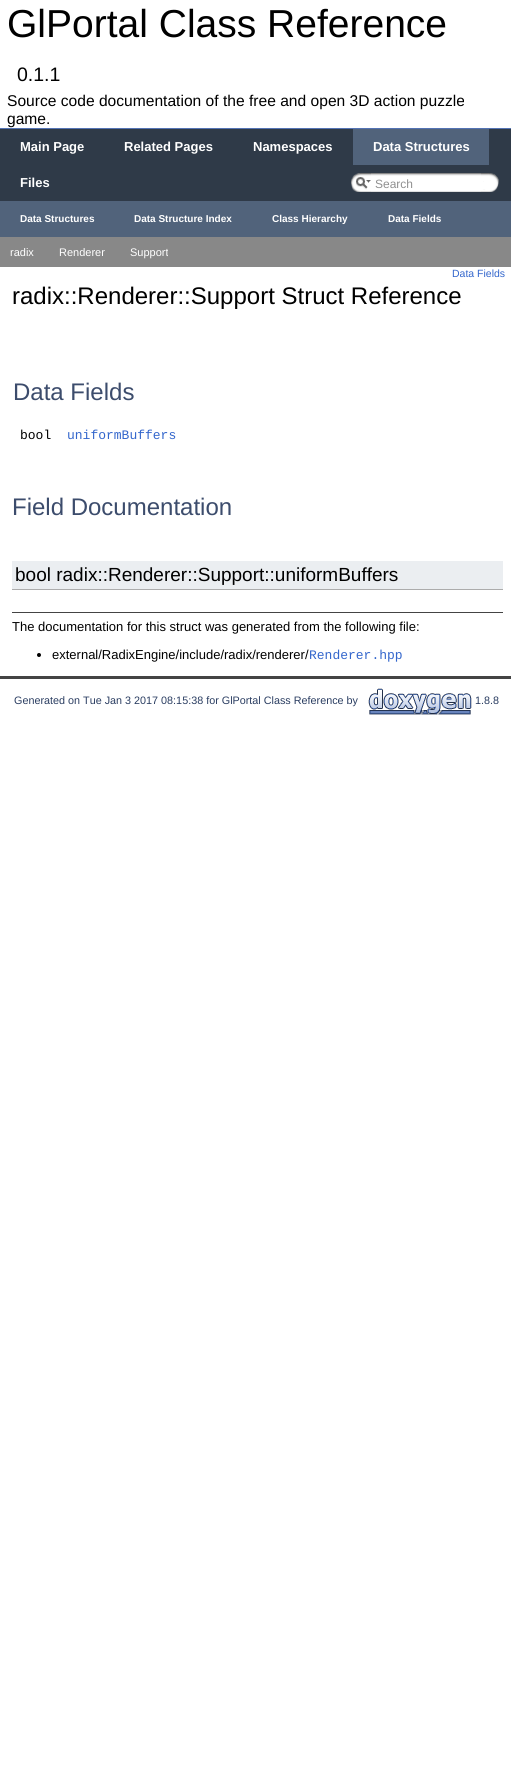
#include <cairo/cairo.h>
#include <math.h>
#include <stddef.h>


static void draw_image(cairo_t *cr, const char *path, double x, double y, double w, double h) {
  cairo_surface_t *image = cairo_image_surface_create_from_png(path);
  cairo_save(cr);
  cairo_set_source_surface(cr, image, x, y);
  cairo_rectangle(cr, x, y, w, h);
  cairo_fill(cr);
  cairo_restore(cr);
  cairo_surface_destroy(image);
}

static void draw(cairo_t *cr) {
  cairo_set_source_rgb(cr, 1, 1, 1);
  cairo_paint(cr);
  cairo_set_source_rgb(cr, 83 / 255.0, 115 / 255.0, 180 / 255.0);
  cairo_rectangle(cr, 0, 128, 511, 1);
  cairo_fill(cr);
  cairo_set_source_rgb(cr, 47 / 255.0, 58 / 255.0, 72 / 255.0);
  cairo_rectangle(cr, 0, 129, 511, 72);
  cairo_fill(cr);
  cairo_set_source_rgb(cr, 81 / 255.0, 99 / 255.0, 123 / 255.0);
  cairo_rectangle(cr, 353, 129, 136, 36);
  cairo_fill(cr);
  draw_image(cr, "images/1.png", 351, 173, 20, 19);
  draw_image(cr, "images/2.png", 356, 177, 15, 12);
  draw_image(cr, "images/3.png", 371, 173, 110, 19);
  draw_image(cr, "images/4.png", 481, 173, 18, 19);
  cairo_rectangle(cr, 0, 201, 511, 36);
  cairo_fill(cr);
  cairo_set_source_rgb(cr, 136 / 255.0, 136 / 255.0, 136 / 255.0);
  cairo_rectangle(cr, 0, 237, 511, 30);
  cairo_fill(cr);
  cairo_set_source_rgb(cr, 235 / 255.0, 238 / 255.0, 241 / 255.0);
  cairo_rectangle(cr, 12, 561, 491, 28);
  cairo_fill(cr);
  cairo_set_source_rgb(cr, 172 / 255.0, 172 / 255.0, 172 / 255.0);
  cairo_rectangle(cr, 12, 589, 491, 1);
  cairo_fill(cr);
  cairo_set_source_rgb(cr, 68 / 255.0, 68 / 255.0, 68 / 255.0);
  cairo_rectangle(cr, 12, 612, 491, 1);
  cairo_fill(cr);
  cairo_set_source_rgb(cr, 0, 0, 0);
  cairo_arc(cr, 39, 655, 2, 0, 2 * M_PI);
  cairo_fill(cr);
  cairo_set_source_rgb(cr, 68 / 255.0, 68 / 255.0, 68 / 255.0);
  cairo_rectangle(cr, 0, 676, 511, 3);
  cairo_fill(cr);
  draw_image(cr, "images/5.png", 368, 688, 104, 27);
  cairo_select_font_face(cr, "Liberation Sans", CAIRO_FONT_SLANT_NORMAL, CAIRO_FONT_WEIGHT_NORMAL);
  cairo_set_font_size(cr, 39);
  cairo_set_source_rgb(cr, 0, 0, 0);
  cairo_move_to(cr, 7, 37);
  cairo_show_text(cr, "GlPortal Class Reference");
  cairo_set_font_size(cr, 19.5);
  cairo_move_to(cr, 17, 81);
  cairo_show_text(cr, "0.1.1");
  cairo_set_font_size(cr, 15.6);
  cairo_move_to(cr, 7, 106);
  cairo_show_text(cr, "Source code documentation of the free and open 3D action puzzle");
  cairo_move_to(cr, 7, 124);
  cairo_show_text(cr, "game.");
  cairo_select_font_face(cr, "Liberation Sans", CAIRO_FONT_SLANT_NORMAL, CAIRO_FONT_WEIGHT_BOLD);
  cairo_set_font_size(cr, 13);
  cairo_set_source_rgb(cr, 1, 1, 1);
  cairo_move_to(cr, 20, 151);
  cairo_show_text(cr, "Main Page");
  cairo_move_to(cr, 124, 151);
  cairo_show_text(cr, "Related Pages");
  cairo_move_to(cr, 253, 151);
  cairo_show_text(cr, "Namespaces");
  cairo_move_to(cr, 373, 151);
  cairo_show_text(cr, "Data Structures");
  cairo_move_to(cr, 20, 187);
  cairo_show_text(cr, "Files");
  cairo_select_font_face(cr, "Liberation Sans", CAIRO_FONT_SLANT_NORMAL, CAIRO_FONT_WEIGHT_NORMAL);
  cairo_set_font_size(cr, 12);
  cairo_set_source_rgb(cr, 144 / 255.0, 144 / 255.0, 144 / 255.0);
  cairo_move_to(cr, 375, 188);
  cairo_show_text(cr, "Search");
  cairo_select_font_face(cr, "Liberation Sans", CAIRO_FONT_SLANT_NORMAL, CAIRO_FONT_WEIGHT_BOLD);
  cairo_set_font_size(cr, 10);
  cairo_set_source_rgb(cr, 1, 1, 1);
  cairo_move_to(cr, 20, 222);
  cairo_show_text(cr, "Data Structures");
  cairo_move_to(cr, 134, 222);
  cairo_show_text(cr, "Data Structure Index");
  cairo_move_to(cr, 272, 222);
  cairo_show_text(cr, "Class Hierarchy");
  cairo_move_to(cr, 388, 222);
  cairo_show_text(cr, "Data Fields");
  cairo_select_font_face(cr, "Liberation Sans", CAIRO_FONT_SLANT_NORMAL, CAIRO_FONT_WEIGHT_NORMAL);
  cairo_set_font_size(cr, 11);
  cairo_move_to(cr, 10, 256);
  cairo_show_text(cr, "radix");
  cairo_move_to(cr, 59, 256);
  cairo_show_text(cr, "Renderer");
  cairo_move_to(cr, 130, 256);
  cairo_show_text(cr, "Support");
  cairo_set_font_size(cr, 10.5);
  cairo_set_source_rgb(cr, 51 / 255.0, 102 / 255.0, 204 / 255.0);
  cairo_move_to(cr, 452, 277);
  cairo_show_text(cr, "Data Fields");
  cairo_set_font_size(cr, 24);
  cairo_set_source_rgb(cr, 0, 0, 0);
  cairo_move_to(cr, 12, 304);
  cairo_show_text(cr, "radix::Renderer::Support Struct Reference");
  cairo_set_source_rgb(cr, 60 / 255.0, 76 / 255.0, 108 / 255.0);
  cairo_move_to(cr, 13, 400);
  cairo_show_text(cr, "Data Fields");
  cairo_select_font_face(cr, "Liberation Mono", CAIRO_FONT_SLANT_NORMAL, CAIRO_FONT_WEIGHT_NORMAL);
  cairo_set_font_size(cr, 13);
  cairo_set_source_rgb(cr, 0, 0, 0);
  cairo_move_to(cr, 20, 439);
  cairo_show_text(cr, "bool");
  cairo_set_source_rgb(cr, 51 / 255.0, 102 / 255.0, 204 / 255.0);
  cairo_move_to(cr, 67, 439);
  cairo_show_text(cr, "uniformBuffers");
  cairo_select_font_face(cr, "Liberation Sans", CAIRO_FONT_SLANT_NORMAL, CAIRO_FONT_WEIGHT_NORMAL);
  cairo_set_font_size(cr, 24);
  cairo_set_source_rgb(cr, 60 / 255.0, 76 / 255.0, 108 / 255.0);
  cairo_move_to(cr, 12, 515);
  cairo_show_text(cr, "Field Documentation");
  cairo_set_font_size(cr, 19);
  cairo_set_source_rgb(cr, 0, 0, 0);
  cairo_move_to(cr, 15, 581);
  cairo_show_text(cr, "bool radix::Renderer::Support::uniformBuffers");
  cairo_set_font_size(cr, 13);
  cairo_move_to(cr, 12, 631);
  cairo_show_text(cr, "The documentation for this struct was generated from the following file:");
  cairo_move_to(cr, 52, 659);
  cairo_show_text(cr, "external/RadixEngine/include/radix/renderer/");
  cairo_select_font_face(cr, "Liberation Mono", CAIRO_FONT_SLANT_NORMAL, CAIRO_FONT_WEIGHT_NORMAL);
  cairo_set_source_rgb(cr, 51 / 255.0, 102 / 255.0, 204 / 255.0);
  cairo_move_to(cr, 309, 659);
  cairo_show_text(cr, "Renderer.hpp");
  cairo_select_font_face(cr, "Liberation Sans", CAIRO_FONT_SLANT_NORMAL, CAIRO_FONT_WEIGHT_NORMAL);
  cairo_set_font_size(cr, 10.8);
  cairo_set_source_rgb(cr, 42 / 255.0, 61 / 255.0, 97 / 255.0);
  cairo_move_to(cr, 14, 704);
  cairo_show_text(cr, "Generated on Tue Jan 3 2017 08:15:38 for GlPortal Class Reference by");
  cairo_move_to(cr, 475, 704);
  cairo_show_text(cr, "1.8.8");
}

int main(void) {
  cairo_surface_t *surface = cairo_image_surface_create(CAIRO_FORMAT_RGB24, 511, 1787);
  cairo_t *cr = cairo_create(surface);
  cairo_font_options_t *options = cairo_font_options_create();
  cairo_font_options_set_hint_metrics(options, CAIRO_HINT_METRICS_OFF);
  cairo_font_options_set_hint_style(options, CAIRO_HINT_STYLE_NONE);
  cairo_set_font_options(cr, options);
  cairo_set_miter_limit(cr, 4);
  draw(cr);
  cairo_surface_write_to_png(surface, "out.png");
  cairo_font_options_destroy(options);
  cairo_destroy(cr);
  cairo_surface_destroy(surface);
  return 0;
}
